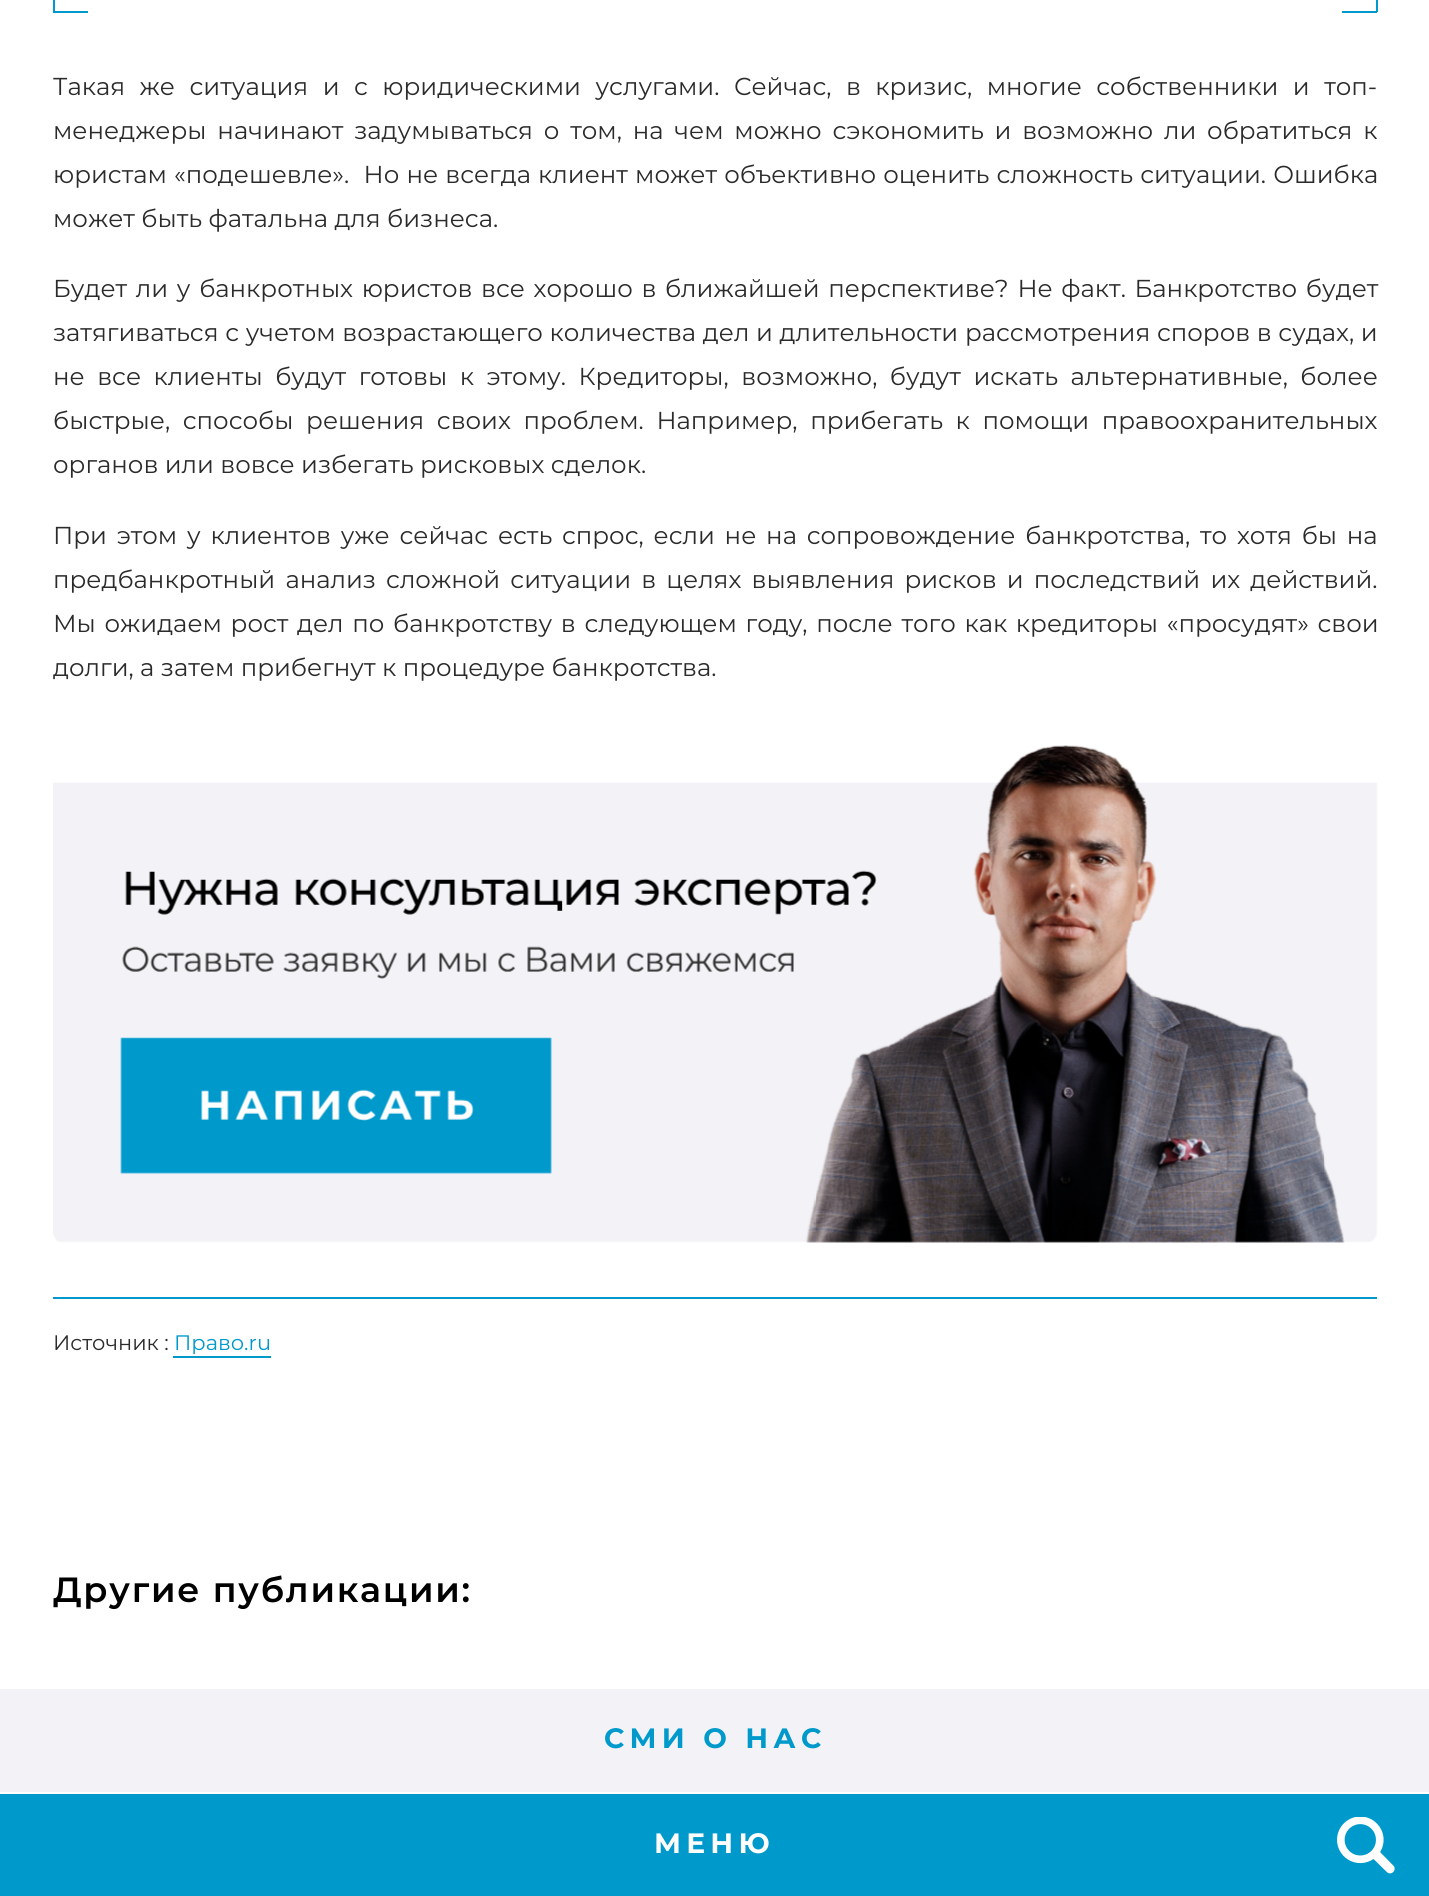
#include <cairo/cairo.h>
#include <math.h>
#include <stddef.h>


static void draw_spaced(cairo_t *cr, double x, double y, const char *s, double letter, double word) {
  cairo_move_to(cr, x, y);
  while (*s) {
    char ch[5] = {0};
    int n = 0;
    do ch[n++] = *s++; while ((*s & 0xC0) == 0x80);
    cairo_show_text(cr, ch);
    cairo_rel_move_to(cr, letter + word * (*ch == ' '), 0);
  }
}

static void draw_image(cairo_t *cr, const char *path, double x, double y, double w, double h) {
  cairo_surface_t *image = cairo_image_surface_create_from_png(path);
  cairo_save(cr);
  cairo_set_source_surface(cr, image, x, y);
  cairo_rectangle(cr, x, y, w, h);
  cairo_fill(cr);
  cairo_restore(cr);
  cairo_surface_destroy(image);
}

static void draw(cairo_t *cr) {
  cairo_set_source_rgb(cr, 1, 1, 1);
  cairo_paint(cr);
  cairo_set_source_rgb(cr, 0, 153 / 255.0, 204 / 255.0);
  cairo_rectangle(cr, 53, 11, 35, 2);
  cairo_fill(cr);
  cairo_rectangle(cr, 53, 0, 2, 12);
  cairo_fill(cr);
  cairo_rectangle(cr, 1376, 0, 2, 12);
  cairo_fill(cr);
  cairo_rectangle(cr, 1342, 11, 35, 2);
  cairo_fill(cr);
  cairo_rectangle(cr, 53, 1297, 1324, 2);
  cairo_fill(cr);
  draw_image(cr, "images/1.png", 53, 745, 1325, 498);
  cairo_rectangle(cr, 173, 1356, 98, 2);
  cairo_fill(cr);
  cairo_set_source_rgb(cr, 243 / 255.0, 243 / 255.0, 247 / 255.0);
  cairo_rectangle(cr, 0, 1689, 1429, 103);
  cairo_fill(cr);
  cairo_set_source_rgb(cr, 0, 153 / 255.0, 204 / 255.0);
  cairo_rectangle(cr, 0, 1794, 1429, 102);
  cairo_fill(cr);
  draw_image(cr, "images/2.png", 1337, 1817, 58, 57);
  cairo_select_font_face(cr, "Montserrat", CAIRO_FONT_SLANT_NORMAL, CAIRO_FONT_WEIGHT_NORMAL);
  cairo_set_font_size(cr, 24.5);
  cairo_set_source_rgb(cr, 43 / 255.0, 43 / 255.0, 43 / 255.0);
  draw_spaced(cr, 53, 95, "Такая же ситуация и с юридическими услугами. Сейчас, в кризис, многие собственники и топ-", 0, 8.1);
  draw_spaced(cr, 53, 139, "менеджеры начинают задумываться о том, на чем можно сэкономить и возможно ли обратиться к", 0, 4.4);
  draw_spaced(cr, 53, 183, "юристам «подешевле».  Но не всегда клиент может объективно оценить сложность ситуации. Ошибка", 0, 0.75);
  cairo_move_to(cr, 53, 227);
  cairo_show_text(cr, "может быть фатальна для бизнеса.");
  draw_spaced(cr, 53, 297, "Будет ли у банкротных юристов все хорошо в ближайшей перспективе? Не факт. Банкротство будет", 0, 2.25);
  draw_spaced(cr, 53, 341, "затягиваться с учетом возрастающего количества дел и длительности рассмотрения споров в судах, и", 0, 0.25);
  draw_spaced(cr, 53, 385, "не все клиенты будут готовы к этому. Кредиторы, возможно, будут искать альтернативные, более", 0, 6.1);
  draw_spaced(cr, 53, 429, "быстрые, способы решения своих проблем. Например, прибегать к помощи правоохранительных", 0, 6.25);
  cairo_move_to(cr, 53, 473);
  cairo_show_text(cr, "органов или вовсе избегать рисковых сделок.");
  draw_spaced(cr, 53, 544, "При этом у клиентов уже сейчас есть спрос, если не на сопровождение банкротства, то хотя бы на", 0, 3.4);
  draw_spaced(cr, 53, 588, "предбанкротный анализ сложной ситуации в целях выявления рисков и последствий их действий.", 0, 3.75);
  draw_spaced(cr, 53, 632, "Мы ожидаем рост дел по банкротству в следующем году, после того как кредиторы «просудят» свои", 0, 2.25);
  cairo_move_to(cr, 53, 676);
  cairo_show_text(cr, "долги, а затем прибегнут к процедуре банкротства.");
  cairo_set_font_size(cr, 21);
  cairo_move_to(cr, 53, 1350);
  cairo_show_text(cr, "Источник :");
  cairo_set_source_rgb(cr, 0, 153 / 255.0, 204 / 255.0);
  cairo_move_to(cr, 174, 1350);
  cairo_show_text(cr, "Право.ru");
  cairo_select_font_face(cr, "Montserrat SemiBold", CAIRO_FONT_SLANT_NORMAL, CAIRO_FONT_WEIGHT_NORMAL);
  cairo_set_font_size(cr, 35);
  cairo_set_source_rgb(cr, 0, 0, 0);
  draw_spaced(cr, 53, 1602, "Другие публикации:", 1.75, 0);
  cairo_select_font_face(cr, "Montserrat", CAIRO_FONT_SLANT_NORMAL, CAIRO_FONT_WEIGHT_BOLD);
  cairo_set_font_size(cr, 28);
  cairo_set_source_rgb(cr, 0, 153 / 255.0, 204 / 255.0);
  draw_spaced(cr, 604, 1748, "СМИ О НАС", 5.25, 0);
  cairo_set_source_rgb(cr, 1, 1, 1);
  draw_spaced(cr, 654, 1853, "МЕНЮ", 5.25, 0);
}

int main(void) {
  cairo_surface_t *surface = cairo_image_surface_create(CAIRO_FORMAT_RGB24, 1429, 1896);
  cairo_t *cr = cairo_create(surface);
  cairo_font_options_t *options = cairo_font_options_create();
  cairo_font_options_set_hint_metrics(options, CAIRO_HINT_METRICS_OFF);
  cairo_font_options_set_hint_style(options, CAIRO_HINT_STYLE_NONE);
  cairo_set_font_options(cr, options);
  cairo_set_miter_limit(cr, 4);
  draw(cr);
  cairo_surface_write_to_png(surface, "out.png");
  cairo_font_options_destroy(options);
  cairo_destroy(cr);
  cairo_surface_destroy(surface);
  return 0;
}
